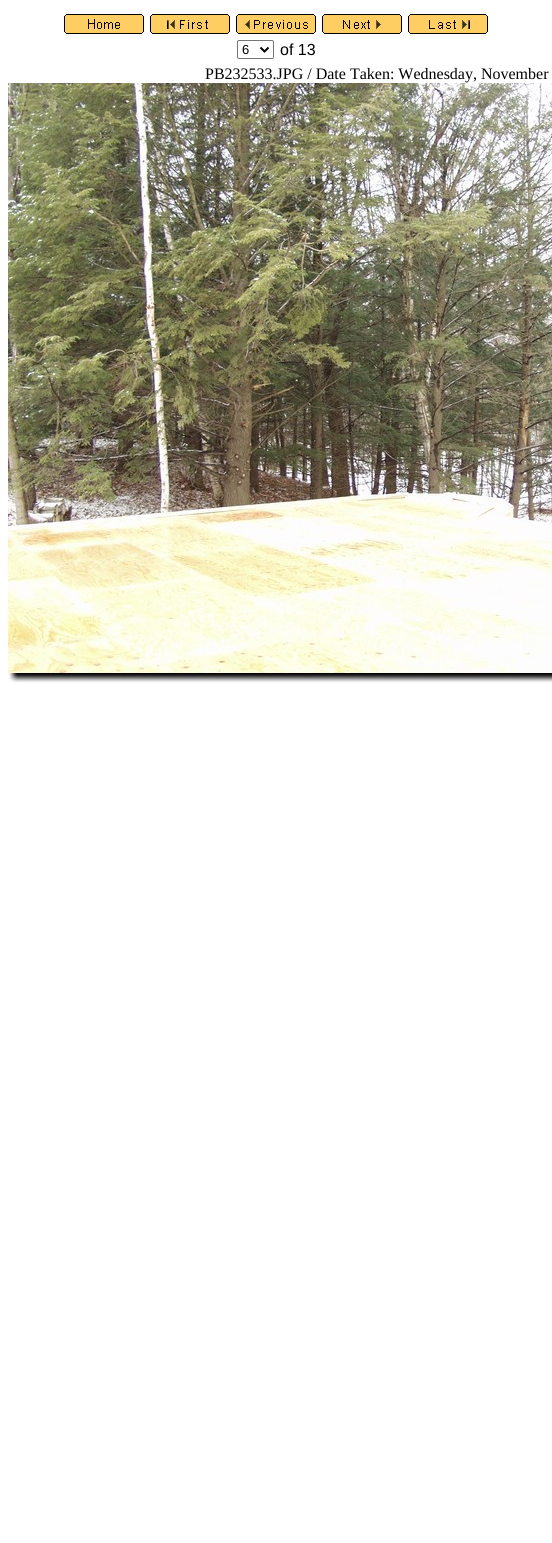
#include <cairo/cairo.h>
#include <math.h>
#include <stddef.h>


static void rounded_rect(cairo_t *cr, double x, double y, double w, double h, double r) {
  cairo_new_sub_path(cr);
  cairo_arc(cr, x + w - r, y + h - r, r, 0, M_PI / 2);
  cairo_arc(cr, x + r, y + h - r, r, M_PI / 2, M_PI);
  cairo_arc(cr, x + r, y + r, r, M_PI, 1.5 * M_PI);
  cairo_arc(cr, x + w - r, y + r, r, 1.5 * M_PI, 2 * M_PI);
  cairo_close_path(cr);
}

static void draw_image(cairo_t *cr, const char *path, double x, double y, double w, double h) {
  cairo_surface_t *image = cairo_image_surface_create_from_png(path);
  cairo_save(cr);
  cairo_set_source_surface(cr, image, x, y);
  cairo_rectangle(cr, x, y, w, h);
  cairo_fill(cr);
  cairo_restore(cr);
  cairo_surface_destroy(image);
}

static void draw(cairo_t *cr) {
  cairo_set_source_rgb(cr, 1, 1, 1);
  cairo_paint(cr);
  draw_image(cr, "images/1.png", 64, 14, 80, 20);
  draw_image(cr, "images/2.png", 150, 14, 80, 20);
  draw_image(cr, "images/3.png", 236, 14, 80, 20);
  draw_image(cr, "images/4.png", 322, 14, 80, 20);
  draw_image(cr, "images/5.png", 408, 14, 80, 20);
  rounded_rect(cr, 237.5, 40.5, 36, 18, 1.5);
  cairo_set_source_rgb(cr, 118 / 255.0, 118 / 255.0, 118 / 255.0);
  cairo_set_line_width(cr, 1);
  cairo_stroke(cr);
  cairo_new_path(cr);
  cairo_move_to(cr, 260.5, 47.5);
  cairo_line_to(cr, 264.5, 51.5);
  cairo_line_to(cr, 268.5, 47.5);
  cairo_set_source_rgb(cr, 0, 0, 0);
  cairo_set_line_width(cr, 2);
  cairo_stroke(cr);
  draw_image(cr, "images/6.png", 8, 83, 544, 600);
  cairo_select_font_face(cr, "Liberation Sans", CAIRO_FONT_SLANT_NORMAL, CAIRO_FONT_WEIGHT_NORMAL);
  cairo_set_font_size(cr, 13);
  cairo_move_to(cr, 242, 54);
  cairo_show_text(cr, "6");
  cairo_set_font_size(cr, 16);
  cairo_move_to(cr, 280, 55);
  cairo_show_text(cr, "of 13");
  cairo_select_font_face(cr, "Liberation Serif", CAIRO_FONT_SLANT_NORMAL, CAIRO_FONT_WEIGHT_NORMAL);
  cairo_move_to(cr, 205, 79);
  cairo_show_text(cr, "PB232533.JPG / Date Taken: Wednesday, November");
}

int main(void) {
  cairo_surface_t *surface = cairo_image_surface_create(CAIRO_FORMAT_RGB24, 552, 1543);
  cairo_t *cr = cairo_create(surface);
  cairo_font_options_t *options = cairo_font_options_create();
  cairo_font_options_set_hint_metrics(options, CAIRO_HINT_METRICS_OFF);
  cairo_font_options_set_hint_style(options, CAIRO_HINT_STYLE_NONE);
  cairo_set_font_options(cr, options);
  cairo_set_miter_limit(cr, 4);
  draw(cr);
  cairo_surface_write_to_png(surface, "out.png");
  cairo_font_options_destroy(options);
  cairo_destroy(cr);
  cairo_surface_destroy(surface);
  return 0;
}
